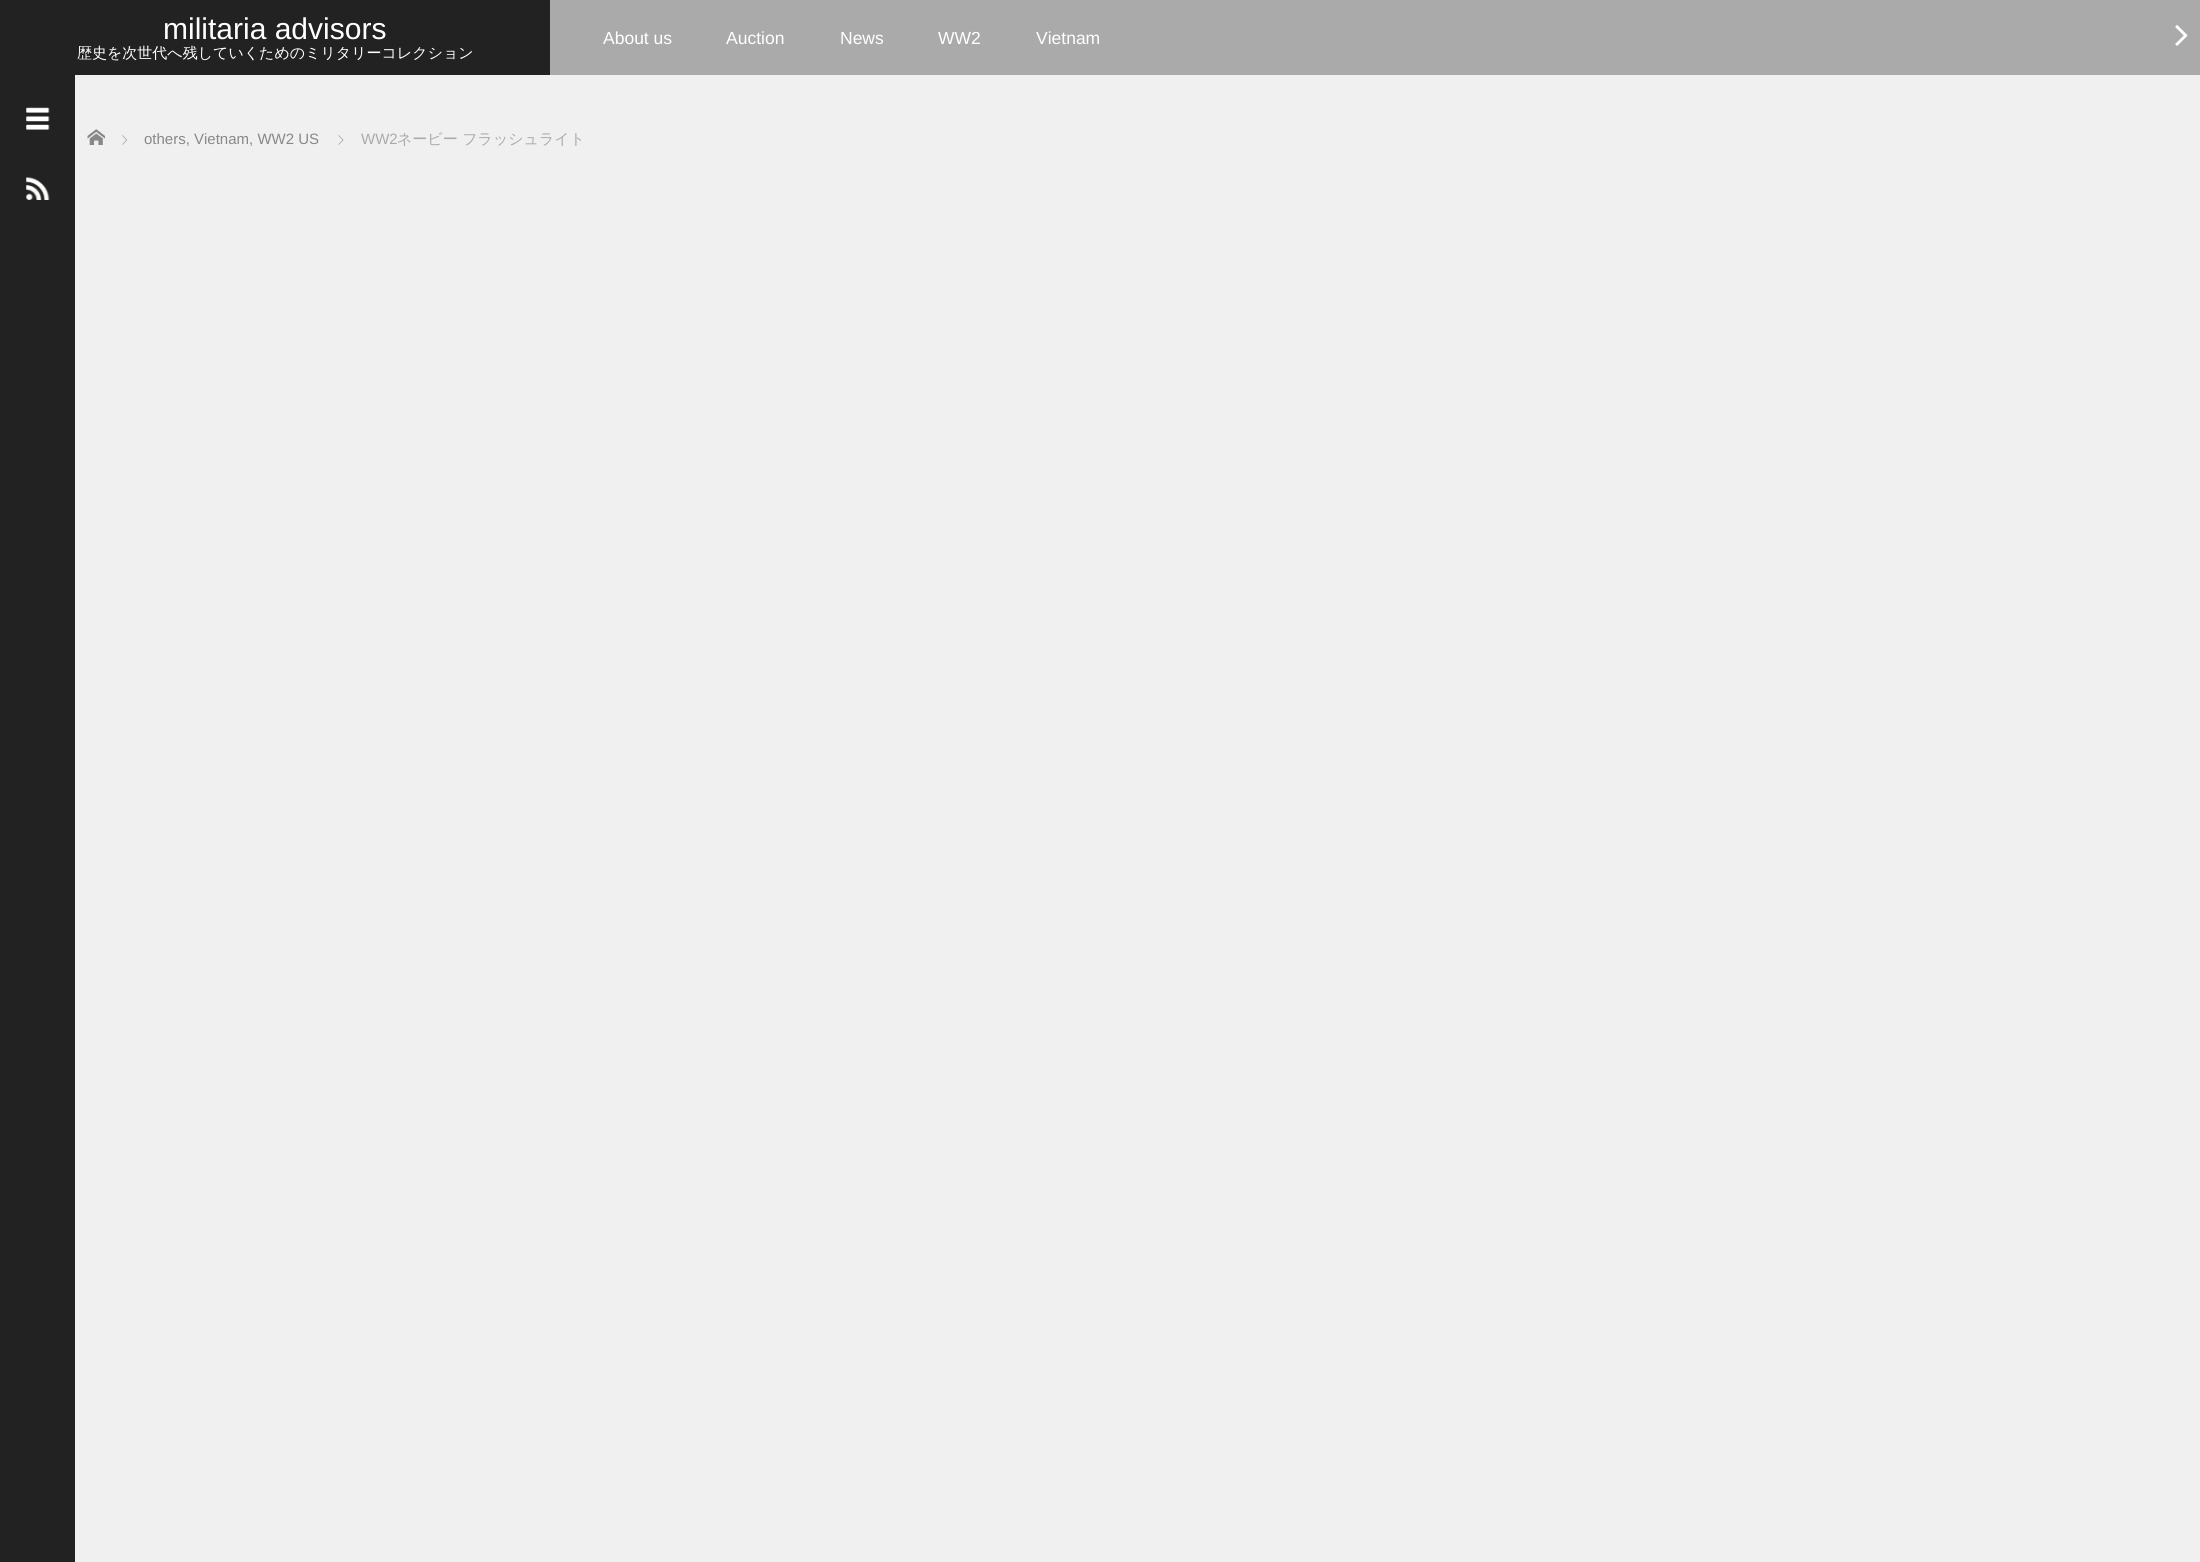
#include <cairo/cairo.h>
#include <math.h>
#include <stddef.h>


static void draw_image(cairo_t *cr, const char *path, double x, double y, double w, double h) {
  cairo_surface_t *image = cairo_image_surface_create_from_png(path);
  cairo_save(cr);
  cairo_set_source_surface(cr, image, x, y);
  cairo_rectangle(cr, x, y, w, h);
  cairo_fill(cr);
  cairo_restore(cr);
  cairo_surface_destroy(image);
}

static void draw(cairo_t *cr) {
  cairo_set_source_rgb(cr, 240 / 255.0, 240 / 255.0, 240 / 255.0);
  cairo_paint(cr);
  cairo_set_source_rgb(cr, 34 / 255.0, 34 / 255.0, 34 / 255.0);
  cairo_rectangle(cr, 0, 0, 550, 75);
  cairo_fill(cr);
  cairo_set_source_rgb(cr, 170 / 255.0, 170 / 255.0, 170 / 255.0);
  cairo_rectangle(cr, 550, 0, 1650, 75);
  cairo_fill(cr);
  draw_image(cr, "images/1.png", 2175, 25, 13, 21);
  cairo_set_source_rgb(cr, 34 / 255.0, 34 / 255.0, 34 / 255.0);
  cairo_rectangle(cr, 0, 75, 75, 1487);
  cairo_fill(cr);
  draw_image(cr, "images/2.png", 26, 107, 24, 23);
  draw_image(cr, "images/3.png", 26, 177, 24, 23);
  draw_image(cr, "images/4.png", 87, 129, 18, 16);
  draw_image(cr, "images/5.png", 122, 135, 6, 10);
  draw_image(cr, "images/6.png", 338, 135, 6, 10);
  cairo_select_font_face(cr, "Liberation Sans", CAIRO_FONT_SLANT_NORMAL, CAIRO_FONT_WEIGHT_NORMAL);
  cairo_set_font_size(cr, 30);
  cairo_set_source_rgb(cr, 1, 1, 1);
  cairo_move_to(cr, 163, 39);
  cairo_show_text(cr, "militaria advisors");
  cairo_select_font_face(cr, "WenQuanYi Zen Hei Medium", CAIRO_FONT_SLANT_NORMAL, CAIRO_FONT_WEIGHT_NORMAL);
  cairo_set_font_size(cr, 15);
  cairo_move_to(cr, 77, 58);
  cairo_show_text(cr, "歴史を次世代へ残していくためのミリタリーコレクション");
  cairo_select_font_face(cr, "Liberation Sans", CAIRO_FONT_SLANT_NORMAL, CAIRO_FONT_WEIGHT_NORMAL);
  cairo_set_font_size(cr, 17.5);
  cairo_move_to(cr, 603, 44);
  cairo_show_text(cr, "About us");
  cairo_move_to(cr, 726, 44);
  cairo_show_text(cr, "Auction");
  cairo_move_to(cr, 840, 44);
  cairo_show_text(cr, "News");
  cairo_move_to(cr, 938, 44);
  cairo_show_text(cr, "WW2");
  cairo_move_to(cr, 1036, 44);
  cairo_show_text(cr, "Vietnam");
  cairo_set_font_size(cr, 15);
  cairo_set_source_rgb(cr, 136 / 255.0, 136 / 255.0, 136 / 255.0);
  cairo_move_to(cr, 144, 144);
  cairo_show_text(cr, "others, Vietnam, WW2 US");
  cairo_set_source_rgb(cr, 170 / 255.0, 170 / 255.0, 170 / 255.0);
  cairo_move_to(cr, 361, 144);
  cairo_show_text(cr, "WW2");
  cairo_select_font_face(cr, "WenQuanYi Zen Hei Medium", CAIRO_FONT_SLANT_NORMAL, CAIRO_FONT_WEIGHT_NORMAL);
  cairo_move_to(cr, 397, 144);
  cairo_show_text(cr, "ネービー フラッシュライト");
}

int main(void) {
  cairo_surface_t *surface = cairo_image_surface_create(CAIRO_FORMAT_RGB24, 2200, 1562);
  cairo_t *cr = cairo_create(surface);
  cairo_font_options_t *options = cairo_font_options_create();
  cairo_font_options_set_hint_metrics(options, CAIRO_HINT_METRICS_OFF);
  cairo_font_options_set_hint_style(options, CAIRO_HINT_STYLE_NONE);
  cairo_set_font_options(cr, options);
  cairo_set_miter_limit(cr, 4);
  draw(cr);
  cairo_surface_write_to_png(surface, "out.png");
  cairo_font_options_destroy(options);
  cairo_destroy(cr);
  cairo_surface_destroy(surface);
  return 0;
}
